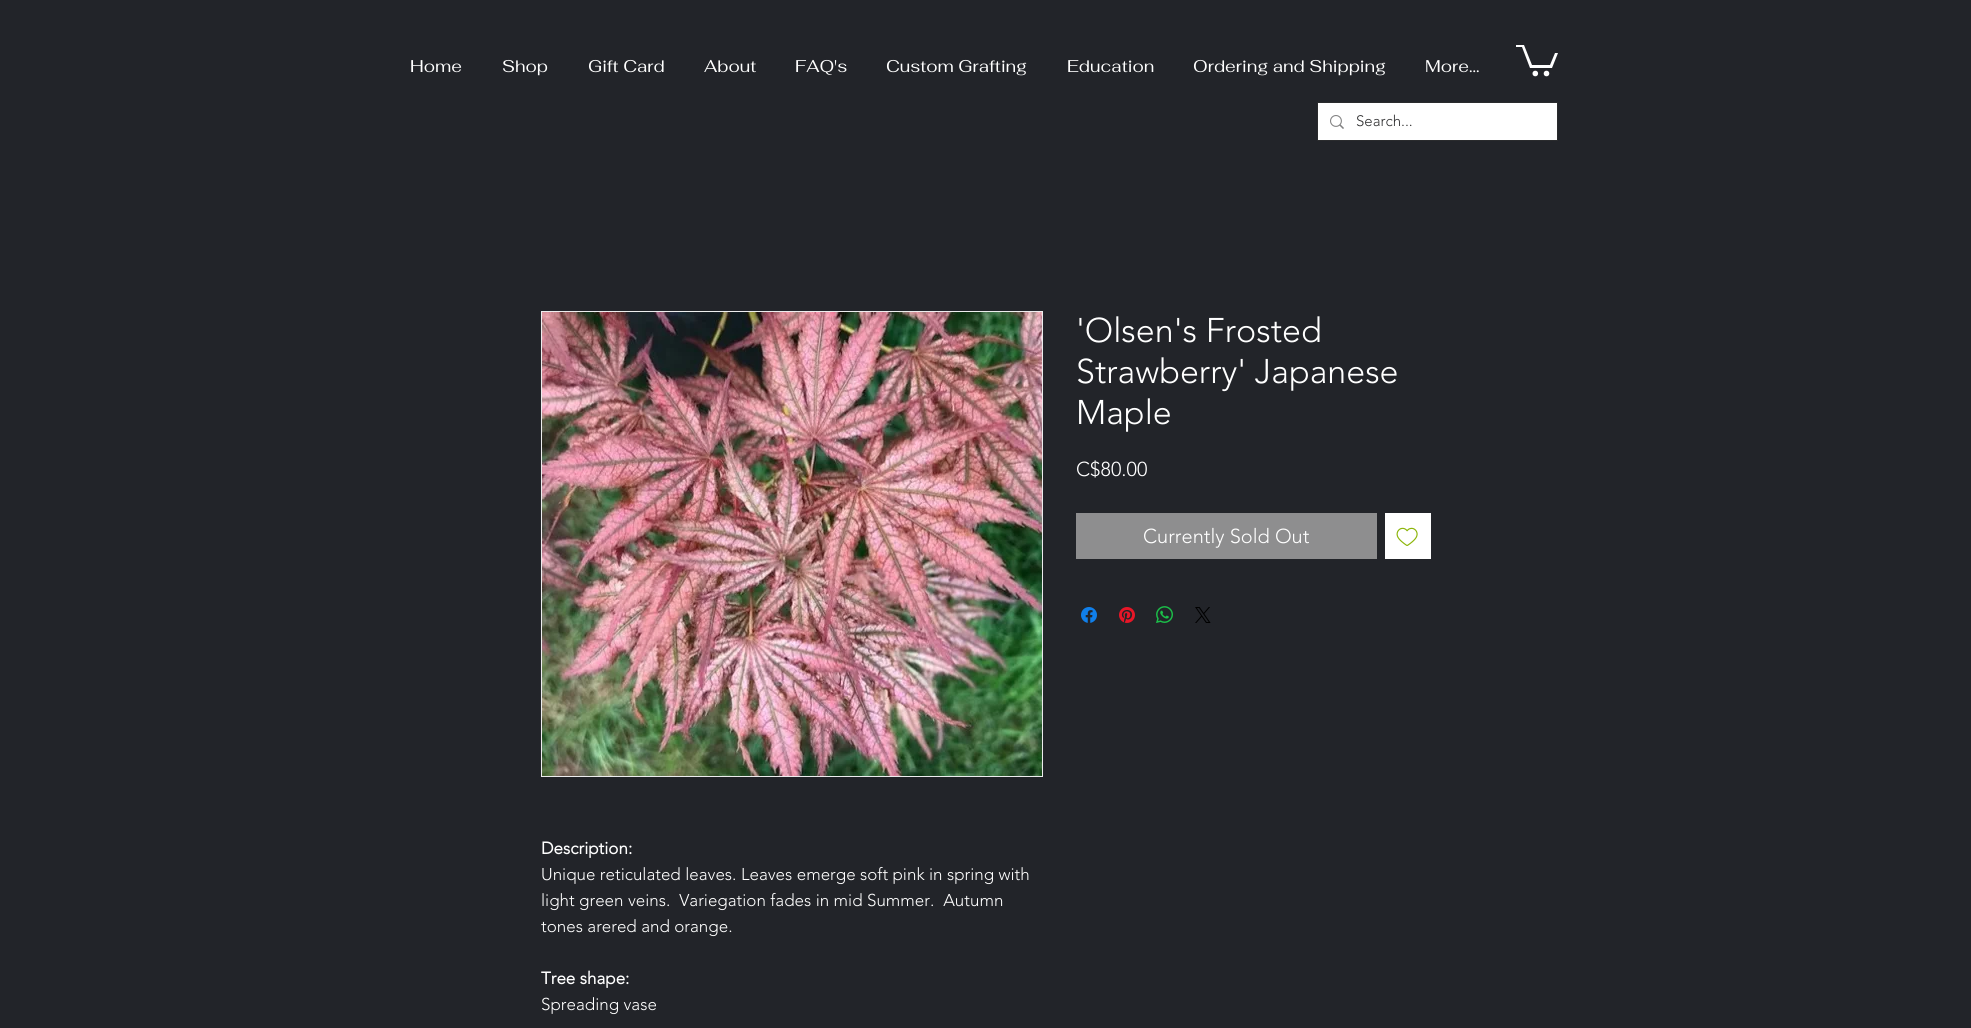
#include <cairo/cairo.h>
#include <math.h>
#include <stddef.h>


static void draw_image(cairo_t *cr, const char *path, double x, double y, double w, double h) {
  cairo_surface_t *image = cairo_image_surface_create_from_png(path);
  cairo_save(cr);
  cairo_set_source_surface(cr, image, x, y);
  cairo_rectangle(cr, x, y, w, h);
  cairo_fill(cr);
  cairo_restore(cr);
  cairo_surface_destroy(image);
}

static void draw(cairo_t *cr) {
  cairo_set_source_rgb(cr, 34 / 255.0, 36 / 255.0, 41 / 255.0);
  cairo_paint(cr);
  cairo_set_source_rgb(cr, 1, 1, 1);
  cairo_new_path(cr);
  cairo_move_to(cr, 1558, 53);
  cairo_line_to(cr, 1552, 68);
  cairo_line_to(cr, 1530, 68);
  cairo_line_to(cr, 1522, 47);
  cairo_line_to(cr, 1516, 47);
  cairo_line_to(cr, 1516, 45);
  cairo_line_to(cr, 1524, 45);
  cairo_line_to(cr, 1532, 65);
  cairo_line_to(cr, 1550, 65);
  cairo_line_to(cr, 1555, 53);
  cairo_fill(cr);
  cairo_arc(cr, 1546.5, 73.5, 2.8, 0, 2 * M_PI);
  cairo_fill(cr);
  cairo_arc(cr, 1535.3, 73.5, 2.8, 0, 2 * M_PI);
  cairo_fill(cr);
  cairo_rectangle(cr, 1317.5, 102.5, 240, 38);
  cairo_set_source_rgb(cr, 42 / 255.0, 43 / 255.0, 45 / 255.0);
  cairo_set_line_width(cr, 1);
  cairo_stroke(cr);
  cairo_set_source_rgb(cr, 1, 1, 1);
  cairo_rectangle(cr, 1318, 103, 239, 37);
  cairo_fill(cr);
  draw_image(cr, "images/1.png", 1330, 115, 14, 14);
  cairo_set_source_rgb(cr, 142 / 255.0, 142 / 255.0, 143 / 255.0);
  cairo_rectangle(cr, 1076, 513, 301, 46);
  cairo_fill(cr);
  cairo_set_source_rgb(cr, 1, 1, 1);
  cairo_rectangle(cr, 1385, 513, 46, 46);
  cairo_fill(cr);
  draw_image(cr, "images/2.png", 1396, 527, 22, 19);
  draw_image(cr, "images/3.png", 1081, 607, 16, 16);
  draw_image(cr, "images/4.png", 1119, 607, 16, 16);
  draw_image(cr, "images/5.png", 1156, 606, 17, 17);
  draw_image(cr, "images/6.png", 1195, 607, 16, 16);
  cairo_rectangle(cr, 541.5, 311.5, 501, 465);
  cairo_set_source_rgb(cr, 237 / 255.0, 237 / 255.0, 238 / 255.0);
  cairo_stroke(cr);
  draw_image(cr, "images/7.png", 542, 312, 500, 464);
  cairo_select_font_face(cr, "Fahkwang", CAIRO_FONT_SLANT_NORMAL, CAIRO_FONT_WEIGHT_NORMAL);
  cairo_set_font_size(cr, 17);
  cairo_set_source_rgb(cr, 1, 1, 1);
  cairo_move_to(cr, 410, 72);
  cairo_show_text(cr, "Home");
  cairo_move_to(cr, 502, 72);
  cairo_show_text(cr, "Shop");
  cairo_move_to(cr, 588, 72);
  cairo_show_text(cr, "Gift Card");
  cairo_move_to(cr, 704, 72);
  cairo_show_text(cr, "About");
  cairo_move_to(cr, 795, 72);
  cairo_show_text(cr, "FAQ's");
  cairo_move_to(cr, 886, 72);
  cairo_show_text(cr, "Custom Grafting");
  cairo_move_to(cr, 1067, 72);
  cairo_show_text(cr, "Education");
  cairo_move_to(cr, 1193, 72);
  cairo_show_text(cr, "Ordering and Shipping");
  cairo_move_to(cr, 1425, 72);
  cairo_show_text(cr, "More...");
  cairo_select_font_face(cr, "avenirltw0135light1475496 Light", CAIRO_FONT_SLANT_NORMAL, CAIRO_FONT_WEIGHT_NORMAL);
  cairo_set_font_size(cr, 15);
  cairo_set_source_rgb(cr, 47 / 255.0, 47 / 255.0, 48 / 255.0);
  cairo_move_to(cr, 1356, 126);
  cairo_show_text(cr, "Search...");
  cairo_set_font_size(cr, 34);
  cairo_set_source_rgb(cr, 1, 1, 1);
  cairo_move_to(cr, 1076, 342);
  cairo_show_text(cr, "'Olsen's Frosted");
  cairo_move_to(cr, 1076, 383);
  cairo_show_text(cr, "Strawberry' Japanese");
  cairo_move_to(cr, 1076, 424);
  cairo_show_text(cr, "Maple");
  cairo_set_font_size(cr, 20);
  cairo_move_to(cr, 1076, 476);
  cairo_show_text(cr, "C$80.00");
  cairo_move_to(cr, 1143, 543);
  cairo_show_text(cr, "Currently Sold Out");
  cairo_select_font_face(cr, "avenirltw0135light1475496", CAIRO_FONT_SLANT_NORMAL, CAIRO_FONT_WEIGHT_BOLD);
  cairo_set_font_size(cr, 17);
  cairo_move_to(cr, 541, 854);
  cairo_show_text(cr, "Description:");
  cairo_select_font_face(cr, "avenirltw0135light1475496 Light", CAIRO_FONT_SLANT_NORMAL, CAIRO_FONT_WEIGHT_NORMAL);
  cairo_move_to(cr, 541, 880);
  cairo_show_text(cr, "Unique reticulated leaves. Leaves emerge soft pink in spring with");
  cairo_move_to(cr, 541, 906);
  cairo_show_text(cr, "light green veins.  Variegation fades in mid Summer.  Autumn");
  cairo_move_to(cr, 541, 932);
  cairo_show_text(cr, "tones arered and orange.");
  cairo_select_font_face(cr, "avenirltw0135light1475496", CAIRO_FONT_SLANT_NORMAL, CAIRO_FONT_WEIGHT_BOLD);
  cairo_move_to(cr, 541, 984);
  cairo_show_text(cr, "Tree shape:");
  cairo_select_font_face(cr, "avenirltw0135light1475496 Light", CAIRO_FONT_SLANT_NORMAL, CAIRO_FONT_WEIGHT_NORMAL);
  cairo_move_to(cr, 541, 1010);
  cairo_show_text(cr, "Spreading vase");
}

int main(void) {
  cairo_surface_t *surface = cairo_image_surface_create(CAIRO_FORMAT_RGB24, 1971, 1028);
  cairo_t *cr = cairo_create(surface);
  cairo_font_options_t *options = cairo_font_options_create();
  cairo_font_options_set_hint_metrics(options, CAIRO_HINT_METRICS_OFF);
  cairo_font_options_set_hint_style(options, CAIRO_HINT_STYLE_NONE);
  cairo_set_font_options(cr, options);
  cairo_set_miter_limit(cr, 4);
  draw(cr);
  cairo_surface_write_to_png(surface, "out.png");
  cairo_font_options_destroy(options);
  cairo_destroy(cr);
  cairo_surface_destroy(surface);
  return 0;
}
